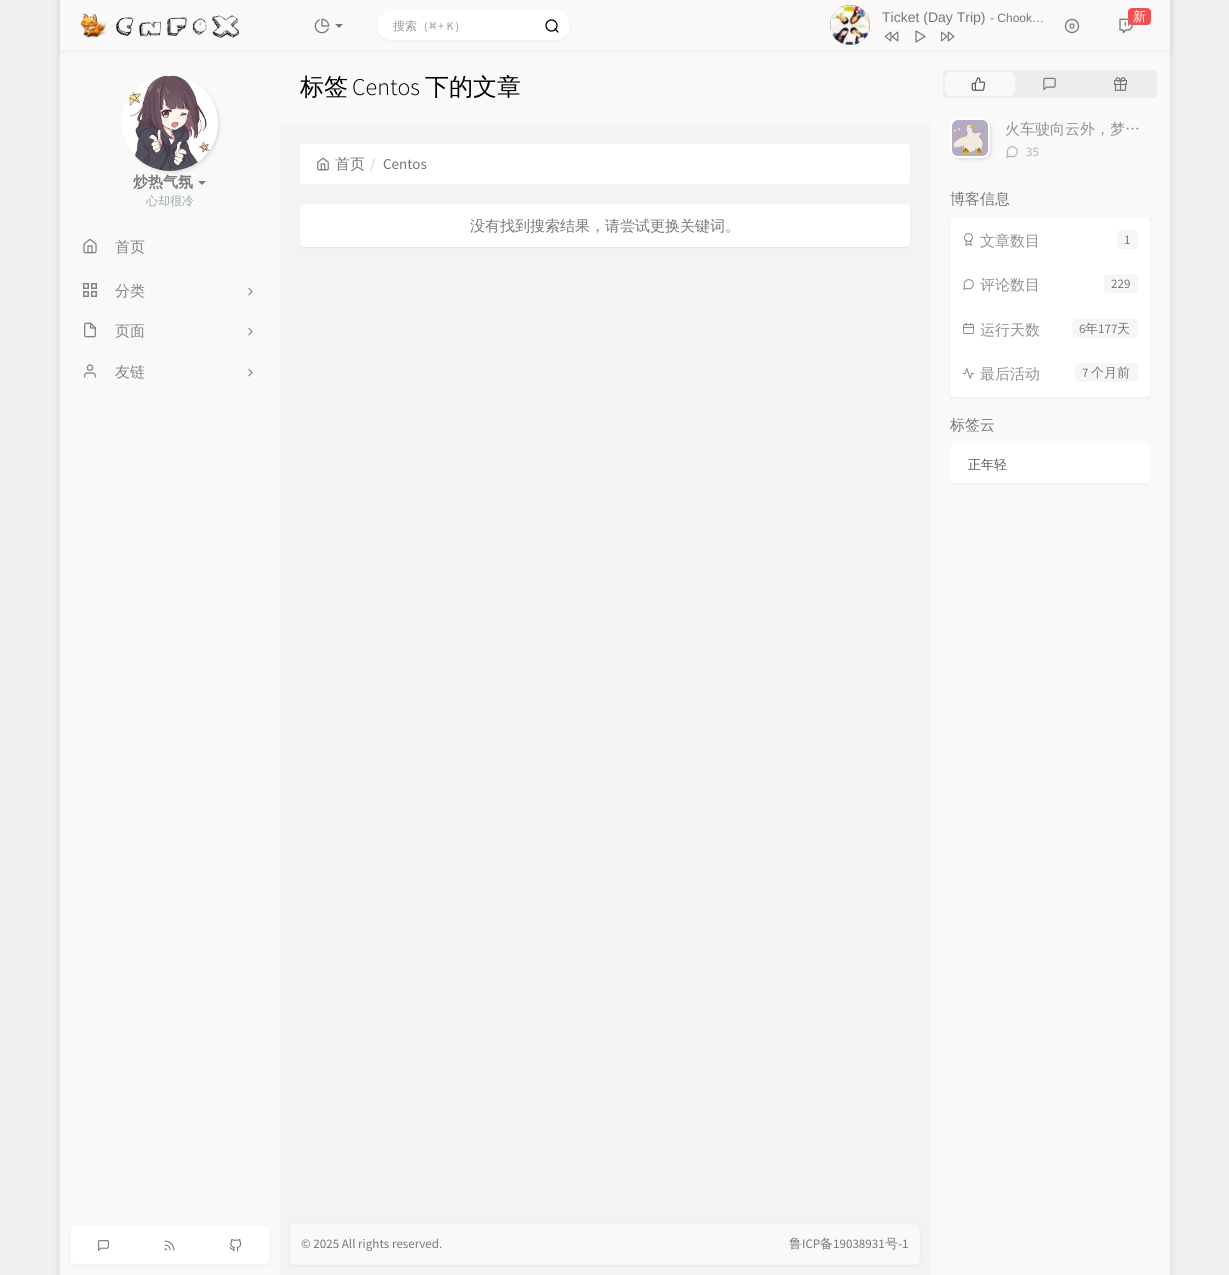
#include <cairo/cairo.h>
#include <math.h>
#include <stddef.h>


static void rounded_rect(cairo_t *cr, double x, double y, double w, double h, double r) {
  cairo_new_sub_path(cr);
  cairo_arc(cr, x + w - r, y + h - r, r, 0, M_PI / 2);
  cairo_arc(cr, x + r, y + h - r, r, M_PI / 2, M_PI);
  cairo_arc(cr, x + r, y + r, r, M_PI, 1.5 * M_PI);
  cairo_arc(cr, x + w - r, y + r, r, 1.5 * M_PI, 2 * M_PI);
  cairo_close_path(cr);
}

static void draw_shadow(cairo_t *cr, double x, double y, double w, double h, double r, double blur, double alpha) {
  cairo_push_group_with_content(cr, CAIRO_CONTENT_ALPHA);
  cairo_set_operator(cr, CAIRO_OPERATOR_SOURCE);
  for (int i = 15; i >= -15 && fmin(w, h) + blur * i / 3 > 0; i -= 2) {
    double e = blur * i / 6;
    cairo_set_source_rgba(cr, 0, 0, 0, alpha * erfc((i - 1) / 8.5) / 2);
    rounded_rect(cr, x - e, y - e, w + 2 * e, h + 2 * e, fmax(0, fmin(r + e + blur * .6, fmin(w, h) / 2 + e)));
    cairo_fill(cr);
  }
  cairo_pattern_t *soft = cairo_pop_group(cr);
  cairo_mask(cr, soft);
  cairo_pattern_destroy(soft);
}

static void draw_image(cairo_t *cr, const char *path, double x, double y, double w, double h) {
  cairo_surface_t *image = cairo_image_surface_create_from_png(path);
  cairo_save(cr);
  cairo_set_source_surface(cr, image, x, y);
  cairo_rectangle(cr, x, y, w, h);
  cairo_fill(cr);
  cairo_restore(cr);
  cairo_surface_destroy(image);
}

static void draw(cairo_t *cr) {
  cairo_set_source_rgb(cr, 239 / 255.0, 239 / 255.0, 239 / 255.0);
  cairo_paint(cr);
  cairo_set_source_rgb(cr, 0, 0, 0);
  draw_shadow(cr, 57, -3, 1116, 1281, 0, 2, 0.05);
  cairo_set_source_rgb(cr, 249 / 255.0, 249 / 255.0, 249 / 255.0);
  cairo_rectangle(cr, 60, 50, 220, 1225);
  cairo_fill(cr);
  cairo_rectangle(cr, 280, 50, 650, 74);
  cairo_fill(cr);
  cairo_rectangle(cr, 930, 50, 240, 1225);
  cairo_fill(cr);
  cairo_set_source_rgb(cr, 0, 0, 0);
  draw_shadow(cr, 59, 0, 1112, 52, 0, 2, 0.05);
  cairo_set_source_rgb(cr, 249 / 255.0, 249 / 255.0, 249 / 255.0);
  cairo_rectangle(cr, 60, 0, 1110, 50);
  cairo_fill(cr);
  draw_image(cr, "images/1.png", 80, 13, 159, 25);
  draw_image(cr, "images/2.png", 314, 18, 16, 16);
  cairo_set_source_rgb(cr, 119 / 255.0, 119 / 255.0, 119 / 255.0);
  cairo_new_path(cr);
  cairo_move_to(cr, 335, 24);
  cairo_line_to(cr, 343, 24);
  cairo_line_to(cr, 339, 28);
  cairo_close_path(cr);
  cairo_fill(cr);
  cairo_set_source_rgb(cr, 0, 0, 0);
  draw_shadow(cr, 377, 11, 193, 30, 15, 1.5, 0.05);
  cairo_set_source_rgb(cr, 1, 1, 1);
  rounded_rect(cr, 377, 10, 193, 30, 15);
  cairo_fill(cr);
  cairo_arc(cr, 551.5, 25.5, 5.5, 0, 2 * M_PI);
  cairo_set_source_rgb(cr, 0, 0, 0);
  cairo_set_line_width(cr, 1.3);
  cairo_stroke(cr);
  cairo_new_path(cr);
  cairo_move_to(cr, 558, 32);
  cairo_line_to(cr, 555, 29);
  cairo_set_line_cap(cr, CAIRO_LINE_CAP_ROUND);
  cairo_set_line_join(cr, CAIRO_LINE_JOIN_ROUND);
  cairo_stroke(cr);
  cairo_set_source_rgb(cr, 142 / 255.0, 169 / 255.0, 167 / 255.0);
  cairo_arc(cr, 850, 25, 20, 0, 2 * M_PI);
  cairo_fill(cr);
  draw_image(cr, "images/3.png", 830, 5, 40, 40);
  draw_image(cr, "images/4.png", 884, 31, 15, 11);
  cairo_new_path(cr);
  cairo_move_to(cr, 916, 31);
  cairo_line_to(cr, 925, 36.5);
  cairo_line_to(cr, 916, 42);
  cairo_close_path(cr);
  cairo_set_source_rgb(cr, 119 / 255.0, 119 / 255.0, 119 / 255.0);
  cairo_set_line_width(cr, 1.2);
  cairo_stroke(cr);
  draw_image(cr, "images/5.png", 941, 31, 14, 11);
  cairo_arc(cr, 1072, 26, 6.5, 0, 2 * M_PI);
  cairo_set_line_width(cr, 1.3);
  cairo_set_line_cap(cr, CAIRO_LINE_CAP_BUTT);
  cairo_set_line_join(cr, CAIRO_LINE_JOIN_MITER);
  cairo_stroke(cr);
  cairo_arc(cr, 1072, 26, 2, 0, 2 * M_PI);
  cairo_stroke(cr);
  draw_image(cr, "images/6.png", 1119, 18, 14, 16);
  cairo_set_source_rgb(cr, 240 / 255.0, 80 / 255.0, 80 / 255.0);
  rounded_rect(cr, 1128, 8, 23, 17, 4);
  cairo_fill(cr);
  cairo_set_source_rgb(cr, 225 / 255.0, 225 / 255.0, 225 / 255.0);
  draw_shadow(cr, 124, 77, 96, 96, 48, 1.5, 1);
  draw_image(cr, "images/7.png", 122, 75, 96, 96);
  cairo_set_source_rgb(cr, 119 / 255.0, 119 / 255.0, 119 / 255.0);
  cairo_new_path(cr);
  cairo_move_to(cr, 198, 181);
  cairo_line_to(cr, 206, 181);
  cairo_line_to(cr, 202, 185);
  cairo_close_path(cr);
  cairo_fill(cr);
  draw_image(cr, "images/8.png", 83, 238, 14, 16);
  cairo_set_source_rgb(cr, 1, 1, 1);
  cairo_new_path(cr);
  cairo_move_to(cr, 70.5, 268);
  cairo_line_to(cr, 280, 268);
  cairo_line_to(cr, 280, 269);
  cairo_line_to(cr, 70.5, 269);
  cairo_curve_to(cr, 70, 269, 70, 269, 70, 268.5);
  cairo_curve_to(cr, 70, 268, 70, 268, 70.5, 268);
  cairo_close_path(cr);
  cairo_fill(cr);
  draw_image(cr, "images/9.png", 83, 283, 14, 14);
  draw_image(cr, "images/10.png", 248, 287, 5, 9);
  draw_image(cr, "images/11.png", 84, 322, 12, 16);
  draw_image(cr, "images/10.png", 248, 327, 5, 9);
  draw_image(cr, "images/12.png", 84, 364, 12, 14);
  draw_image(cr, "images/10.png", 248, 368, 5, 9);
  cairo_set_source_rgb(cr, 0, 0, 0);
  draw_shadow(cr, 70, 1226, 200, 40, 5, 1.5, 0.05);
  cairo_set_source_rgb(cr, 1, 1, 1);
  rounded_rect(cr, 70.5, 1225.5, 199, 39, 4.5);
  cairo_fill_preserve(cr);
  cairo_set_source_rgb(cr, 246 / 255.0, 246 / 255.0, 246 / 255.0);
  cairo_set_line_width(cr, 1);
  cairo_stroke(cr);
  draw_image(cr, "images/13.png", 98, 1240, 11, 11);
  draw_image(cr, "images/14.png", 164, 1240, 11, 11);
  draw_image(cr, "images/15.png", 229, 1239, 13, 13);
  cairo_set_source_rgb(cr, 241 / 255.0, 243 / 255.0, 244 / 255.0);
  cairo_rectangle(cr, 280, 124, 650, 1151);
  cairo_fill(cr);
  cairo_set_source_rgb(cr, 1, 1, 1);
  rounded_rect(cr, 300, 144, 610, 40, 4);
  cairo_fill(cr);
  draw_image(cr, "images/16.png", 317, 157, 12, 14);
  cairo_set_source_rgb(cr, 0, 0, 0);
  draw_shadow(cr, 300, 205, 610, 43, 4, 0.5, 0.05);
  cairo_set_source_rgb(cr, 1, 1, 1);
  rounded_rect(cr, 300, 204, 610, 43, 4);
  cairo_fill(cr);
  cairo_set_source_rgb(cr, 237 / 255.0, 236 / 255.0, 238 / 255.0);
  rounded_rect(cr, 943, 70, 214, 28, 5);
  cairo_fill(cr);
  cairo_set_source_rgb(cr, 249 / 255.0, 249 / 255.0, 249 / 255.0);
  rounded_rect(cr, 945, 72, 70, 24, 5);
  cairo_fill(cr);
  draw_image(cr, "images/17.png", 971, 77, 15, 14);
  draw_image(cr, "images/18.png", 1043, 77, 13, 14);
  draw_image(cr, "images/19.png", 1114, 77, 13, 14);
  cairo_set_source_rgb(cr, 225 / 255.0, 225 / 255.0, 225 / 255.0);
  draw_shadow(cr, 952, 120, 40, 40, 8, 1.5, 1);
  rounded_rect(cr, 951, 119, 38, 38, 7);
  cairo_set_source_rgb(cr, 1, 1, 1);
  cairo_set_line_width(cr, 2);
  cairo_stroke(cr);
  draw_image(cr, "images/20.png", 952, 120, 36, 36);
  draw_image(cr, "images/21.png", 1006, 146, 12, 12);
  cairo_set_source_rgb(cr, 0, 0, 0);
  draw_shadow(cr, 950, 219, 200, 179, 0, 1.5, 0.05);
  cairo_set_source_rgb(cr, 1, 1, 1);
  cairo_new_path(cr);
  cairo_move_to(cr, 954, 218);
  cairo_line_to(cr, 1146, 218);
  cairo_curve_to(cr, 1148, 218, 1150, 220, 1150, 222);
  cairo_line_to(cr, 1150, 263);
  cairo_line_to(cr, 950, 263);
  cairo_line_to(cr, 950, 222);
  cairo_curve_to(cr, 950, 220, 952, 218, 954, 218);
  cairo_close_path(cr);
  cairo_fill(cr);
  draw_image(cr, "images/22.png", 964, 233, 9, 13);
  cairo_set_source_rgb(cr, 246 / 255.0, 246 / 255.0, 246 / 255.0);
  rounded_rect(cr, 1117, 230, 21, 19, 4);
  cairo_fill(cr);
  cairo_set_source_rgb(cr, 1, 1, 1);
  cairo_rectangle(cr, 950, 263, 200, 88);
  cairo_fill(cr);
  draw_image(cr, "images/23.png", 963, 279, 11, 11);
  cairo_set_source_rgb(cr, 246 / 255.0, 246 / 255.0, 246 / 255.0);
  rounded_rect(cr, 1104, 274, 34, 19, 4);
  cairo_fill(cr);
  draw_image(cr, "images/24.png", 963, 322, 11, 12);
  rounded_rect(cr, 1072, 319, 66, 19, 4);
  cairo_fill(cr);
  cairo_set_source_rgb(cr, 1, 1, 1);
  cairo_new_path(cr);
  cairo_move_to(cr, 950, 351);
  cairo_line_to(cr, 1150, 351);
  cairo_line_to(cr, 1150, 393);
  cairo_curve_to(cr, 1150, 395, 1148, 397, 1146, 397);
  cairo_line_to(cr, 954, 397);
  cairo_curve_to(cr, 952, 397, 950, 395, 950, 393);
  cairo_close_path(cr);
  cairo_fill(cr);
  draw_image(cr, "images/25.png", 962, 368, 13, 11);
  cairo_set_source_rgb(cr, 246 / 255.0, 246 / 255.0, 246 / 255.0);
  rounded_rect(cr, 1075, 363, 63, 19, 4);
  cairo_fill(cr);
  cairo_set_source_rgb(cr, 0, 0, 0);
  draw_shadow(cr, 950, 444, 200, 40, 4, 0.5, 0.05);
  cairo_set_source_rgb(cr, 1, 1, 1);
  rounded_rect(cr, 950, 443, 200, 40, 4);
  cairo_fill(cr);
  cairo_set_source_rgb(cr, 0, 0, 0);
  draw_shadow(cr, 290, 1225, 630, 41, 5, 1.5, 0.05);
  cairo_set_source_rgb(cr, 249 / 255.0, 249 / 255.0, 249 / 255.0);
  rounded_rect(cr, 290.5, 1224.5, 629, 40, 4.5);
  cairo_fill_preserve(cr);
  cairo_set_source_rgb(cr, 246 / 255.0, 246 / 255.0, 246 / 255.0);
  cairo_set_line_width(cr, 1);
  cairo_stroke(cr);
  cairo_save(cr);
  cairo_rectangle(cr, 393, 18, 122, 17);
  cairo_clip(cr);
  cairo_select_font_face(cr, "WenQuanYi Zen Hei Medium", CAIRO_FONT_SLANT_NORMAL, CAIRO_FONT_WEIGHT_NORMAL);
  cairo_set_font_size(cr, 12);
  cairo_set_source_rgb(cr, 153 / 255.0, 153 / 255.0, 153 / 255.0);
  cairo_move_to(cr, 393, 30);
  cairo_show_text(cr, "搜索（");
  cairo_restore(cr);
  cairo_select_font_face(cr, "DejaVu Sans Mono", CAIRO_FONT_SLANT_NORMAL, CAIRO_FONT_WEIGHT_NORMAL);
  cairo_set_font_size(cr, 12);
  cairo_set_source_rgb(cr, 153 / 255.0, 153 / 255.0, 153 / 255.0);
  cairo_move_to(cr, 429, 30);
  cairo_show_text(cr, "⌘");
  cairo_select_font_face(cr, "Source Sans Pro", CAIRO_FONT_SLANT_NORMAL, CAIRO_FONT_WEIGHT_NORMAL);
  cairo_move_to(cr, 438, 30);
  cairo_show_text(cr, "+ K");
  cairo_select_font_face(cr, "WenQuanYi Zen Hei Medium", CAIRO_FONT_SLANT_NORMAL, CAIRO_FONT_WEIGHT_NORMAL);
  cairo_move_to(cr, 454, 30);
  cairo_show_text(cr, "）");
  cairo_select_font_face(cr, "Liberation Sans", CAIRO_FONT_SLANT_NORMAL, CAIRO_FONT_WEIGHT_NORMAL);
  cairo_set_font_size(cr, 14);
  cairo_set_source_rgb(cr, 119 / 255.0, 119 / 255.0, 119 / 255.0);
  cairo_move_to(cr, 882, 22);
  cairo_show_text(cr, "Ticket (Day Trip)");
  cairo_set_font_size(cr, 12);
  cairo_move_to(cr, 990, 22);
  cairo_show_text(cr, "- Chook…");
  cairo_select_font_face(cr, "WenQuanYi Zen Hei Medium", CAIRO_FONT_SLANT_NORMAL, CAIRO_FONT_WEIGHT_NORMAL);
  cairo_set_font_size(cr, 13);
  cairo_set_source_rgb(cr, 1, 1, 1);
  cairo_move_to(cr, 1133, 21);
  cairo_show_text(cr, "新");
  cairo_select_font_face(cr, "WenQuanYi Zen Hei", CAIRO_FONT_SLANT_NORMAL, CAIRO_FONT_WEIGHT_BOLD);
  cairo_set_font_size(cr, 15);
  cairo_set_source_rgb(cr, 119 / 255.0, 119 / 255.0, 119 / 255.0);
  cairo_move_to(cr, 133, 187);
  cairo_show_text(cr, "炒热气氛");
  cairo_select_font_face(cr, "WenQuanYi Zen Hei Medium", CAIRO_FONT_SLANT_NORMAL, CAIRO_FONT_WEIGHT_NORMAL);
  cairo_set_font_size(cr, 12);
  cairo_set_source_rgb(cr, 152 / 255.0, 166 / 255.0, 173 / 255.0);
  cairo_move_to(cr, 146, 205);
  cairo_show_text(cr, "心却很冷");
  cairo_set_font_size(cr, 15);
  cairo_set_source_rgb(cr, 132 / 255.0, 132 / 255.0, 132 / 255.0);
  cairo_move_to(cr, 115, 252);
  cairo_show_text(cr, "首页");
  cairo_move_to(cr, 115, 296);
  cairo_show_text(cr, "分类");
  cairo_move_to(cr, 115, 336);
  cairo_show_text(cr, "页面");
  cairo_move_to(cr, 115, 377);
  cairo_show_text(cr, "友链");
  cairo_set_font_size(cr, 24);
  cairo_set_source_rgb(cr, 0, 0, 0);
  cairo_move_to(cr, 300, 95);
  cairo_show_text(cr, "标签");
  cairo_select_font_face(cr, "Source Sans Pro Light", CAIRO_FONT_SLANT_NORMAL, CAIRO_FONT_WEIGHT_NORMAL);
  cairo_move_to(cr, 352, 95);
  cairo_show_text(cr, "Centos");
  cairo_select_font_face(cr, "WenQuanYi Zen Hei Medium", CAIRO_FONT_SLANT_NORMAL, CAIRO_FONT_WEIGHT_NORMAL);
  cairo_move_to(cr, 425, 95);
  cairo_show_text(cr, "下的文章");
  cairo_set_font_size(cr, 15);
  cairo_set_source_rgb(cr, 119 / 255.0, 119 / 255.0, 119 / 255.0);
  cairo_move_to(cr, 335, 169);
  cairo_show_text(cr, "首页");
  cairo_select_font_face(cr, "Source Sans Pro", CAIRO_FONT_SLANT_NORMAL, CAIRO_FONT_WEIGHT_NORMAL);
  cairo_set_source_rgb(cr, 204 / 255.0, 204 / 255.0, 204 / 255.0);
  cairo_move_to(cr, 370, 169);
  cairo_show_text(cr, "/");
  cairo_set_source_rgb(cr, 119 / 255.0, 119 / 255.0, 119 / 255.0);
  cairo_move_to(cr, 383, 169);
  cairo_show_text(cr, "Centos");
  cairo_select_font_face(cr, "WenQuanYi Zen Hei Medium", CAIRO_FONT_SLANT_NORMAL, CAIRO_FONT_WEIGHT_NORMAL);
  cairo_move_to(cr, 470, 231);
  cairo_show_text(cr, "没有找到搜索结果，请尝试更换关键词。");
  cairo_set_source_rgb(cr, 145 / 255.0, 145 / 255.0, 145 / 255.0);
  cairo_move_to(cr, 1005, 134);
  cairo_show_text(cr, "火车驶向云外，梦…");
  cairo_select_font_face(cr, "Source Sans Pro", CAIRO_FONT_SLANT_NORMAL, CAIRO_FONT_WEIGHT_NORMAL);
  cairo_set_font_size(cr, 13);
  cairo_set_source_rgb(cr, 178 / 255.0, 178 / 255.0, 178 / 255.0);
  cairo_move_to(cr, 1026, 156);
  cairo_show_text(cr, "35");
  cairo_select_font_face(cr, "WenQuanYi Zen Hei Medium", CAIRO_FONT_SLANT_NORMAL, CAIRO_FONT_WEIGHT_NORMAL);
  cairo_set_font_size(cr, 15);
  cairo_set_source_rgb(cr, 119 / 255.0, 119 / 255.0, 119 / 255.0);
  cairo_move_to(cr, 950, 204);
  cairo_show_text(cr, "博客信息");
  cairo_set_source_rgb(cr, 145 / 255.0, 145 / 255.0, 145 / 255.0);
  cairo_move_to(cr, 980, 246);
  cairo_show_text(cr, "文章数目");
  cairo_select_font_face(cr, "Source Sans Pro", CAIRO_FONT_SLANT_NORMAL, CAIRO_FONT_WEIGHT_NORMAL);
  cairo_set_font_size(cr, 13);
  cairo_set_source_rgb(cr, 119 / 255.0, 119 / 255.0, 119 / 255.0);
  cairo_move_to(cr, 1124, 244);
  cairo_show_text(cr, "1");
  cairo_select_font_face(cr, "WenQuanYi Zen Hei Medium", CAIRO_FONT_SLANT_NORMAL, CAIRO_FONT_WEIGHT_NORMAL);
  cairo_set_font_size(cr, 15);
  cairo_set_source_rgb(cr, 145 / 255.0, 145 / 255.0, 145 / 255.0);
  cairo_move_to(cr, 980, 290);
  cairo_show_text(cr, "评论数目");
  cairo_select_font_face(cr, "Source Sans Pro", CAIRO_FONT_SLANT_NORMAL, CAIRO_FONT_WEIGHT_NORMAL);
  cairo_set_font_size(cr, 13);
  cairo_set_source_rgb(cr, 119 / 255.0, 119 / 255.0, 119 / 255.0);
  cairo_move_to(cr, 1111, 288);
  cairo_show_text(cr, "229");
  cairo_select_font_face(cr, "WenQuanYi Zen Hei Medium", CAIRO_FONT_SLANT_NORMAL, CAIRO_FONT_WEIGHT_NORMAL);
  cairo_set_font_size(cr, 15);
  cairo_set_source_rgb(cr, 145 / 255.0, 145 / 255.0, 145 / 255.0);
  cairo_move_to(cr, 980, 335);
  cairo_show_text(cr, "运行天数");
  cairo_select_font_face(cr, "Source Sans Pro", CAIRO_FONT_SLANT_NORMAL, CAIRO_FONT_WEIGHT_NORMAL);
  cairo_set_font_size(cr, 13);
  cairo_set_source_rgb(cr, 119 / 255.0, 119 / 255.0, 119 / 255.0);
  cairo_move_to(cr, 1079, 333);
  cairo_show_text(cr, "6");
  cairo_select_font_face(cr, "WenQuanYi Zen Hei Medium", CAIRO_FONT_SLANT_NORMAL, CAIRO_FONT_WEIGHT_NORMAL);
  cairo_move_to(cr, 1085, 333);
  cairo_show_text(cr, "年");
  cairo_select_font_face(cr, "Source Sans Pro", CAIRO_FONT_SLANT_NORMAL, CAIRO_FONT_WEIGHT_NORMAL);
  cairo_move_to(cr, 1098, 333);
  cairo_show_text(cr, "177");
  cairo_select_font_face(cr, "WenQuanYi Zen Hei Medium", CAIRO_FONT_SLANT_NORMAL, CAIRO_FONT_WEIGHT_NORMAL);
  cairo_move_to(cr, 1117, 333);
  cairo_show_text(cr, "天");
  cairo_set_font_size(cr, 15);
  cairo_set_source_rgb(cr, 145 / 255.0, 145 / 255.0, 145 / 255.0);
  cairo_move_to(cr, 980, 379);
  cairo_show_text(cr, "最后活动");
  cairo_select_font_face(cr, "Source Sans Pro", CAIRO_FONT_SLANT_NORMAL, CAIRO_FONT_WEIGHT_NORMAL);
  cairo_set_font_size(cr, 13);
  cairo_set_source_rgb(cr, 119 / 255.0, 119 / 255.0, 119 / 255.0);
  cairo_move_to(cr, 1082, 377);
  cairo_show_text(cr, "7");
  cairo_select_font_face(cr, "WenQuanYi Zen Hei Medium", CAIRO_FONT_SLANT_NORMAL, CAIRO_FONT_WEIGHT_NORMAL);
  cairo_move_to(cr, 1091, 377);
  cairo_show_text(cr, "个月前");
  cairo_set_font_size(cr, 15);
  cairo_move_to(cr, 950, 430);
  cairo_show_text(cr, "标签云");
  cairo_set_font_size(cr, 13);
  cairo_set_source_rgb(cr, 85 / 255.0, 85 / 255.0, 85 / 255.0);
  cairo_move_to(cr, 968, 469);
  cairo_show_text(cr, "正年轻");
  cairo_select_font_face(cr, "Source Sans Pro", CAIRO_FONT_SLANT_NORMAL, CAIRO_FONT_WEIGHT_NORMAL);
  cairo_set_source_rgb(cr, 119 / 255.0, 119 / 255.0, 119 / 255.0);
  cairo_move_to(cr, 301, 1248);
  cairo_show_text(cr, "© 2025 All rights reserved.");
  cairo_select_font_face(cr, "WenQuanYi Zen Hei Medium", CAIRO_FONT_SLANT_NORMAL, CAIRO_FONT_WEIGHT_NORMAL);
  cairo_move_to(cr, 789, 1248);
  cairo_show_text(cr, "鲁");
  cairo_select_font_face(cr, "Source Sans Pro", CAIRO_FONT_SLANT_NORMAL, CAIRO_FONT_WEIGHT_NORMAL);
  cairo_move_to(cr, 802, 1248);
  cairo_show_text(cr, "ICP");
  cairo_select_font_face(cr, "WenQuanYi Zen Hei Medium", CAIRO_FONT_SLANT_NORMAL, CAIRO_FONT_WEIGHT_NORMAL);
  cairo_move_to(cr, 820, 1248);
  cairo_show_text(cr, "备");
  cairo_select_font_face(cr, "Source Sans Pro", CAIRO_FONT_SLANT_NORMAL, CAIRO_FONT_WEIGHT_NORMAL);
  cairo_move_to(cr, 833, 1248);
  cairo_show_text(cr, "19038931");
  cairo_select_font_face(cr, "WenQuanYi Zen Hei Medium", CAIRO_FONT_SLANT_NORMAL, CAIRO_FONT_WEIGHT_NORMAL);
  cairo_move_to(cr, 885, 1248);
  cairo_show_text(cr, "号");
  cairo_select_font_face(cr, "Source Sans Pro", CAIRO_FONT_SLANT_NORMAL, CAIRO_FONT_WEIGHT_NORMAL);
  cairo_move_to(cr, 898, 1248);
  cairo_show_text(cr, "-1");
}

int main(void) {
  cairo_surface_t *surface = cairo_image_surface_create(CAIRO_FORMAT_RGB24, 1229, 1275);
  cairo_t *cr = cairo_create(surface);
  cairo_font_options_t *options = cairo_font_options_create();
  cairo_font_options_set_hint_metrics(options, CAIRO_HINT_METRICS_OFF);
  cairo_font_options_set_hint_style(options, CAIRO_HINT_STYLE_NONE);
  cairo_set_font_options(cr, options);
  cairo_set_miter_limit(cr, 4);
  draw(cr);
  cairo_surface_write_to_png(surface, "out.png");
  cairo_font_options_destroy(options);
  cairo_destroy(cr);
  cairo_surface_destroy(surface);
  return 0;
}
